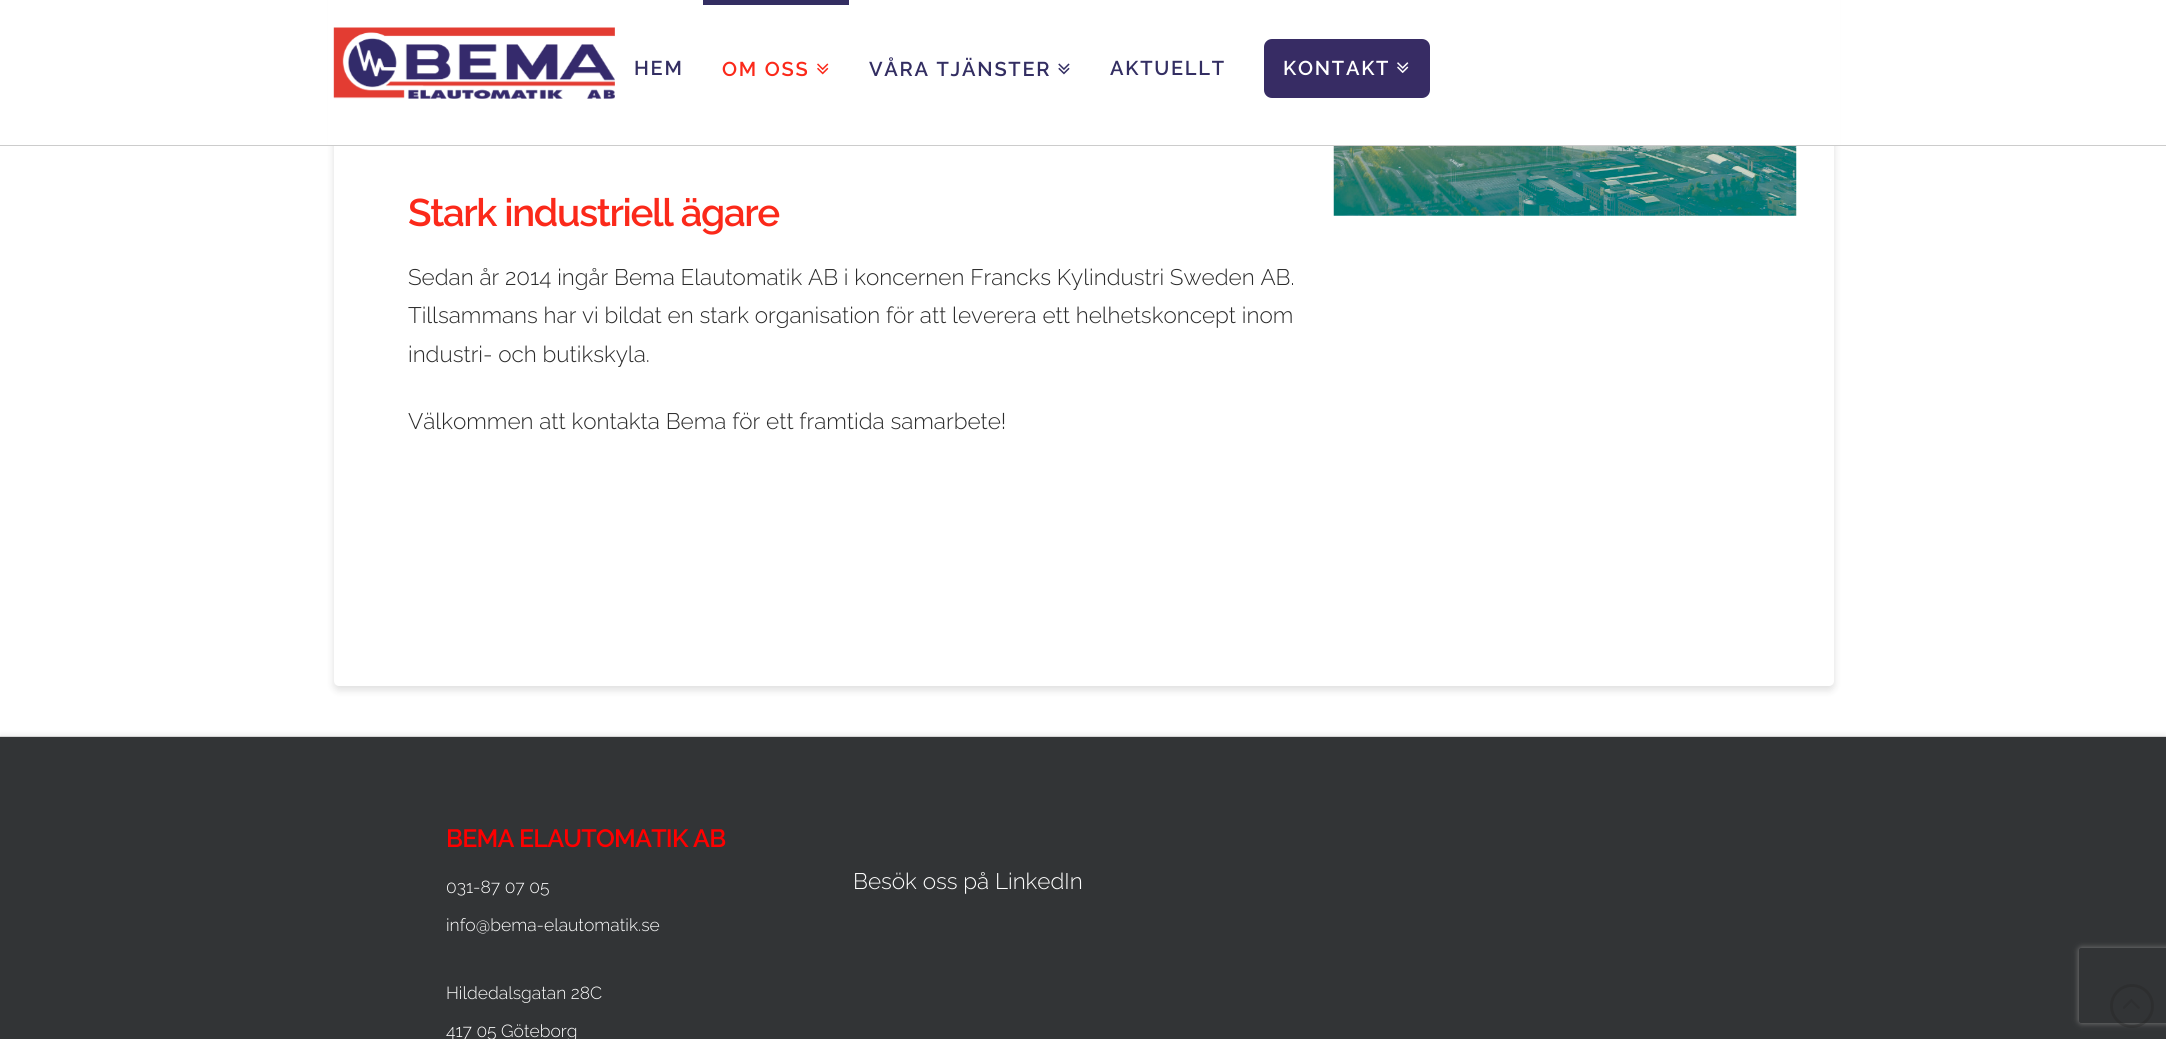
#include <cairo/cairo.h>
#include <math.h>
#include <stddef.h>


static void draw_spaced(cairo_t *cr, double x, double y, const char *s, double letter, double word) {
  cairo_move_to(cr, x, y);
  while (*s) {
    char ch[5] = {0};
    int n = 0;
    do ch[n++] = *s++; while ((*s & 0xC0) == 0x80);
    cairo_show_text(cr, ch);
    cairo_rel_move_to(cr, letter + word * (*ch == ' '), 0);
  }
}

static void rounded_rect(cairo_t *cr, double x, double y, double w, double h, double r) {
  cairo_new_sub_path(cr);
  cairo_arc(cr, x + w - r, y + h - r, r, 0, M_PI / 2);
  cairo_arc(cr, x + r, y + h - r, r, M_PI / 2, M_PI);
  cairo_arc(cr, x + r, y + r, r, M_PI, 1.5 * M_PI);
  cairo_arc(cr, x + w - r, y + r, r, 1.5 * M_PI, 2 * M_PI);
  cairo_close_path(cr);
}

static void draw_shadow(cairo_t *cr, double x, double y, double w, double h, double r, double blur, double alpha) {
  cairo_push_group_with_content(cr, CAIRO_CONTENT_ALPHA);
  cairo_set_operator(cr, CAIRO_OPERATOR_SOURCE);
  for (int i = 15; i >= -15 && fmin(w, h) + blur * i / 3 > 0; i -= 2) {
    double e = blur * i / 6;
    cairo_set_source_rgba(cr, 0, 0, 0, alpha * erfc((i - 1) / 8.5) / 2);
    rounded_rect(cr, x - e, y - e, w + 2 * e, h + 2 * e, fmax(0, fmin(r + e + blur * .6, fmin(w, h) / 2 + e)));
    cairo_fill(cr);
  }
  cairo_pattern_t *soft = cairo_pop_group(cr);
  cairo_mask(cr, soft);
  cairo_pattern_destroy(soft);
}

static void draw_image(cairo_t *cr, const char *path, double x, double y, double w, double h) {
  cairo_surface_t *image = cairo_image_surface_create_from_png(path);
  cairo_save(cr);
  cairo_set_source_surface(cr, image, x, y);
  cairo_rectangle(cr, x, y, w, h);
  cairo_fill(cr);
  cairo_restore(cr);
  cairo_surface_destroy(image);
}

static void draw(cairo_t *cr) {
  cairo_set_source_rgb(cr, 1, 1, 1);
  cairo_paint(cr);
  cairo_set_source_rgb(cr, 0, 0, 0);
  draw_shadow(cr, 334, -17, 1500, 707, 5, 4, 0.13);
  cairo_set_source_rgb(cr, 1, 1, 1);
  rounded_rect(cr, 334, -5, 1500, 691, 5);
  cairo_fill(cr);
  cairo_rectangle(cr, 328, 0, 1512, 145);
  cairo_fill(cr);
  cairo_set_source_rgb(cr, 204 / 255.0, 204 / 255.0, 204 / 255.0);
  cairo_rectangle(cr, 0, 145, 2166, 1);
  cairo_fill(cr);
  draw_image(cr, "images/1.png", 333, 27, 282, 72);
  cairo_set_source_rgb(cr, 51 / 255.0, 46 / 255.0, 98 / 255.0);
  cairo_rectangle(cr, 703, 0, 146, 5);
  cairo_fill(cr);
  draw_image(cr, "images/2.png", 817, 63, 12, 12);
  draw_image(cr, "images/3.png", 1058, 63, 12, 12);
  cairo_set_source_rgb(cr, 55 / 255.0, 44 / 255.0, 100 / 255.0);
  rounded_rect(cr, 1264, 39, 166, 59, 8);
  cairo_fill(cr);
  draw_image(cr, "images/4.png", 1397, 62, 12, 11);
  draw_image(cr, "images/5.png", 1333, 146, 464, 70);
  cairo_set_source_rgb(cr, 0, 0, 0);
  draw_shadow(cr, 0, 734, 2166, 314, 0, 3, 0.07);
  cairo_set_source_rgb(cr, 50 / 255.0, 52 / 255.0, 54 / 255.0);
  cairo_rectangle(cr, 0, 737, 2166, 302);
  cairo_fill(cr);
  cairo_set_source_rgb(cr, 212 / 255.0, 212 / 255.0, 212 / 255.0);
  cairo_rectangle(cr, 0, 736, 2166, 1);
  cairo_fill(cr);
  cairo_save(cr);
  cairo_set_fill_rule(cr, CAIRO_FILL_RULE_EVEN_ODD);
  cairo_new_path(cr);
  cairo_move_to(cr, 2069, 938);
  cairo_line_to(cr, 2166, 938);
  cairo_line_to(cr, 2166, 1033);
  cairo_line_to(cr, 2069, 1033);
  cairo_close_path(cr);
  cairo_move_to(cr, 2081.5, 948);
  cairo_line_to(cr, 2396.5, 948);
  cairo_curve_to(cr, 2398, 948, 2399, 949, 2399, 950.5);
  cairo_line_to(cr, 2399, 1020.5);
  cairo_curve_to(cr, 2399, 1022, 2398, 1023, 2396.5, 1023);
  cairo_line_to(cr, 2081.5, 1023);
  cairo_curve_to(cr, 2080, 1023, 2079, 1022, 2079, 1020.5);
  cairo_line_to(cr, 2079, 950.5);
  cairo_curve_to(cr, 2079, 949, 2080, 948, 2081.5, 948);
  cairo_close_path(cr);
  cairo_clip(cr);
  cairo_set_source_rgb(cr, 128 / 255.0, 128 / 255.0, 128 / 255.0);
  draw_shadow(cr, 2079, 948, 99, 75, 2.5, 3, 1);
  cairo_restore(cr);
  cairo_arc(cr, 2132, 1006, 20.5, 0, 2 * M_PI);
  cairo_set_source_rgba(cr, 39 / 255.0, 39 / 255.0, 39 / 255.0, 0.38);
  cairo_set_line_width(cr, 3);
  cairo_stroke(cr);
  draw_image(cr, "images/6.png", 2123, 999, 17, 10);
  cairo_select_font_face(cr, "Raleway SemiBold", CAIRO_FONT_SLANT_NORMAL, CAIRO_FONT_WEIGHT_NORMAL);
  cairo_set_font_size(cr, 20);
  cairo_set_source_rgb(cr, 51 / 255.0, 46 / 255.0, 98 / 255.0);
  draw_spaced(cr, 634, 75, "HEM", 1.75, 0);
  cairo_set_source_rgb(cr, 251 / 255.0, 41 / 255.0, 26 / 255.0);
  draw_spaced(cr, 722, 76, "OM OSS", 1.75, 0);
  cairo_set_source_rgb(cr, 51 / 255.0, 46 / 255.0, 98 / 255.0);
  draw_spaced(cr, 869, 76, "VÅRA TJÄNSTER", 1.75, 0);
  draw_spaced(cr, 1110, 75, "AKTUELLT", 1.75, 0);
  cairo_set_source_rgb(cr, 1, 1, 1);
  draw_spaced(cr, 1283, 75, "KONTAKT", 1.75, 0);
  cairo_set_font_size(cr, 38.5);
  cairo_set_source_rgb(cr, 251 / 255.0, 41 / 255.0, 26 / 255.0);
  draw_spaced(cr, 408, 226, "Stark industriell ägare", -1.35, 0);
  cairo_select_font_face(cr, "Raleway Light", CAIRO_FONT_SLANT_NORMAL, CAIRO_FONT_WEIGHT_NORMAL);
  cairo_set_font_size(cr, 22.5);
  cairo_set_source_rgb(cr, 43 / 255.0, 43 / 255.0, 43 / 255.0);
  cairo_move_to(cr, 408, 285);
  cairo_show_text(cr, "Sedan år 2014 ingår Bema Elautomatik AB i koncernen Francks Kylindustri Sweden AB.");
  cairo_move_to(cr, 408, 323);
  cairo_show_text(cr, "Tillsammans har vi bildat en stark organisation för att leverera ett helhetskoncept inom");
  cairo_move_to(cr, 408, 362);
  cairo_show_text(cr, "industri- och butikskyla.");
  cairo_move_to(cr, 408, 429);
  cairo_show_text(cr, "Välkommen att kontakta Bema för ett framtida samarbete!");
  cairo_select_font_face(cr, "Raleway SemiBold", CAIRO_FONT_SLANT_NORMAL, CAIRO_FONT_WEIGHT_NORMAL);
  cairo_set_font_size(cr, 25);
  cairo_set_source_rgb(cr, 1, 0, 0);
  draw_spaced(cr, 446, 847, "BEMA ELAUTOMATIK AB", -0.75, 0);
  cairo_select_font_face(cr, "Raleway Light", CAIRO_FONT_SLANT_NORMAL, CAIRO_FONT_WEIGHT_NORMAL);
  cairo_set_font_size(cr, 17.5);
  cairo_set_source_rgb(cr, 1, 1, 1);
  cairo_move_to(cr, 446, 893);
  cairo_show_text(cr, "031-87 07 05");
  cairo_move_to(cr, 446, 931);
  cairo_show_text(cr, "info@bema-elautomatik.se");
  cairo_move_to(cr, 446, 999);
  cairo_show_text(cr, "Hildedalsgatan 28C");
  cairo_move_to(cr, 446, 1037);
  cairo_show_text(cr, "417 05 Göteborg");
  cairo_set_font_size(cr, 22.5);
  cairo_move_to(cr, 853, 889);
  cairo_show_text(cr, "Besök oss på LinkedIn");
}

int main(void) {
  cairo_surface_t *surface = cairo_image_surface_create(CAIRO_FORMAT_RGB24, 2166, 1039);
  cairo_t *cr = cairo_create(surface);
  cairo_font_options_t *options = cairo_font_options_create();
  cairo_font_options_set_hint_metrics(options, CAIRO_HINT_METRICS_OFF);
  cairo_font_options_set_hint_style(options, CAIRO_HINT_STYLE_NONE);
  cairo_set_font_options(cr, options);
  cairo_set_miter_limit(cr, 4);
  draw(cr);
  cairo_surface_write_to_png(surface, "out.png");
  cairo_font_options_destroy(options);
  cairo_destroy(cr);
  cairo_surface_destroy(surface);
  return 0;
}
